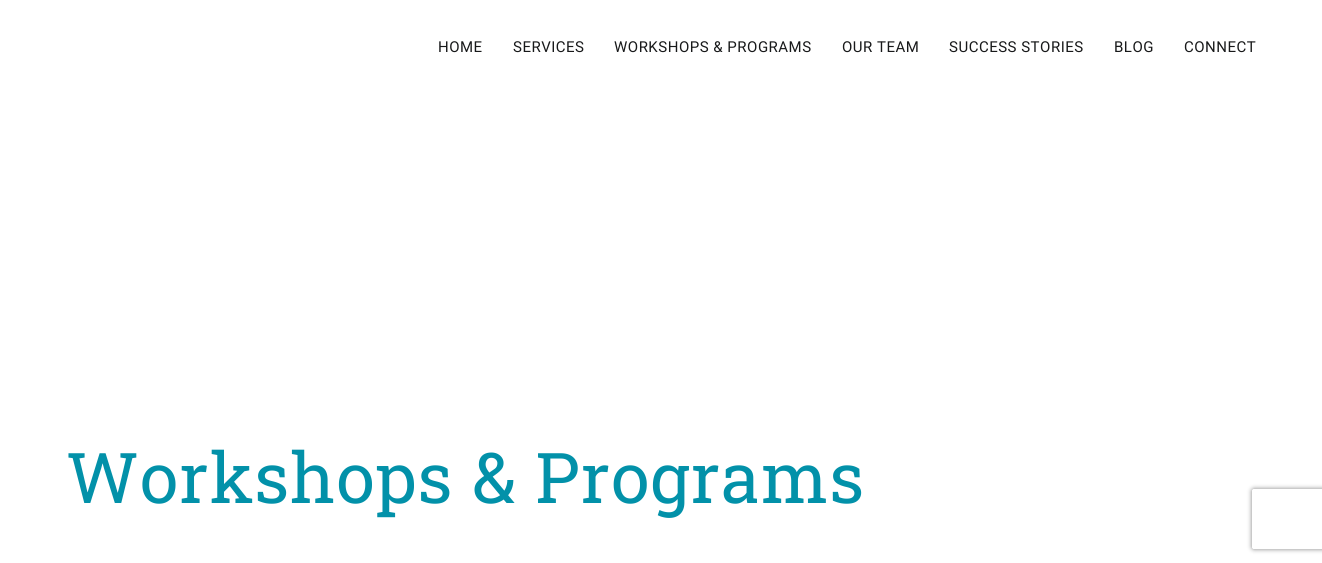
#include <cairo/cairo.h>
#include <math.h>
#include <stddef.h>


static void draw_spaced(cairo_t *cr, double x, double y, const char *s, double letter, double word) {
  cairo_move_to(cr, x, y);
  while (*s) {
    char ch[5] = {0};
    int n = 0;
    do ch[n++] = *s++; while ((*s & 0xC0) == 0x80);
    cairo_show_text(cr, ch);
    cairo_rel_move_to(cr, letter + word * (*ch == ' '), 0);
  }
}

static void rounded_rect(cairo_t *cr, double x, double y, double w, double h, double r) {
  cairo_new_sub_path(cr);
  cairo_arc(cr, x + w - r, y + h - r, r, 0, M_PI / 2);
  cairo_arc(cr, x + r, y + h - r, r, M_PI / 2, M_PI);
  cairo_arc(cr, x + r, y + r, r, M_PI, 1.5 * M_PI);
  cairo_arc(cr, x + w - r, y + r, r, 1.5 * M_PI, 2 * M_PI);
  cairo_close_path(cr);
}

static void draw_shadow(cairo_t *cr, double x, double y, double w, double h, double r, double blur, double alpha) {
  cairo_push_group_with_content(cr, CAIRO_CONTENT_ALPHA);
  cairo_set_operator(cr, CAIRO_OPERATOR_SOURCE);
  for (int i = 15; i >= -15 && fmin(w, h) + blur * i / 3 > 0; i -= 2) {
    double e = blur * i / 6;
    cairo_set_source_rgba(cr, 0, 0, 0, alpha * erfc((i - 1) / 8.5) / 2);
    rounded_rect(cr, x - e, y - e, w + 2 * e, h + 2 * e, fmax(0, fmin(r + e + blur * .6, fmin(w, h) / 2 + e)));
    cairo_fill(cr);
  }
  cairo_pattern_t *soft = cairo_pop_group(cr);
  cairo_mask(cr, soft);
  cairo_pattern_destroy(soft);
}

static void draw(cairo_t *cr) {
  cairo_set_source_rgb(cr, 1, 1, 1);
  cairo_paint(cr);
  cairo_save(cr);
  cairo_set_fill_rule(cr, CAIRO_FILL_RULE_EVEN_ODD);
  cairo_new_path(cr);
  cairo_move_to(cr, 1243, 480);
  cairo_line_to(cr, 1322, 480);
  cairo_line_to(cr, 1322, 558);
  cairo_line_to(cr, 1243, 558);
  cairo_close_path(cr);
  cairo_move_to(cr, 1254, 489);
  cairo_line_to(cr, 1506, 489);
  cairo_curve_to(cr, 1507, 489, 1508, 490, 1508, 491);
  cairo_line_to(cr, 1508, 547);
  cairo_curve_to(cr, 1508, 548, 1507, 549, 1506, 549);
  cairo_line_to(cr, 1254, 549);
  cairo_curve_to(cr, 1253, 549, 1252, 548, 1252, 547);
  cairo_line_to(cr, 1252, 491);
  cairo_curve_to(cr, 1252, 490, 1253, 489, 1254, 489);
  cairo_close_path(cr);
  cairo_clip(cr);
  cairo_set_source_rgb(cr, 128 / 255.0, 128 / 255.0, 128 / 255.0);
  draw_shadow(cr, 1252, 489, 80, 60, 2, 2.5, 1);
  cairo_restore(cr);
  cairo_select_font_face(cr, "Roboto", CAIRO_FONT_SLANT_NORMAL, CAIRO_FONT_WEIGHT_NORMAL);
  cairo_set_font_size(cr, 15);
  cairo_set_source_rgb(cr, 24 / 255.0, 25 / 255.0, 26 / 255.0);
  draw_spaced(cr, 438, 52, "HOME", 0.5, 0);
  draw_spaced(cr, 513, 52, "SERVICES", 0.5, 0);
  draw_spaced(cr, 614, 52, "WORKSHOPS & PROGRAMS", 0.5, 0);
  draw_spaced(cr, 842, 52, "OUR TEAM", 0.5, 0);
  draw_spaced(cr, 949, 52, "SUCCESS STORIES", 0.5, 0);
  draw_spaced(cr, 1114, 52, "BLOG", 0.5, 0);
  draw_spaced(cr, 1184, 52, "CONNECT", 0.5, 0);
  cairo_select_font_face(cr, "Roboto Slab", CAIRO_FONT_SLANT_NORMAL, CAIRO_FONT_WEIGHT_NORMAL);
  cairo_set_font_size(cr, 70);
  cairo_set_source_rgb(cr, 2 / 255.0, 145 / 255.0, 169 / 255.0);
  draw_spaced(cr, 66, 503, "Workshops & Programs", 1, 0);
}

int main(void) {
  cairo_surface_t *surface = cairo_image_surface_create(CAIRO_FORMAT_RGB24, 1322, 563);
  cairo_t *cr = cairo_create(surface);
  cairo_font_options_t *options = cairo_font_options_create();
  cairo_font_options_set_hint_metrics(options, CAIRO_HINT_METRICS_OFF);
  cairo_font_options_set_hint_style(options, CAIRO_HINT_STYLE_NONE);
  cairo_set_font_options(cr, options);
  cairo_set_miter_limit(cr, 4);
  draw(cr);
  cairo_surface_write_to_png(surface, "out.png");
  cairo_font_options_destroy(options);
  cairo_destroy(cr);
  cairo_surface_destroy(surface);
  return 0;
}
